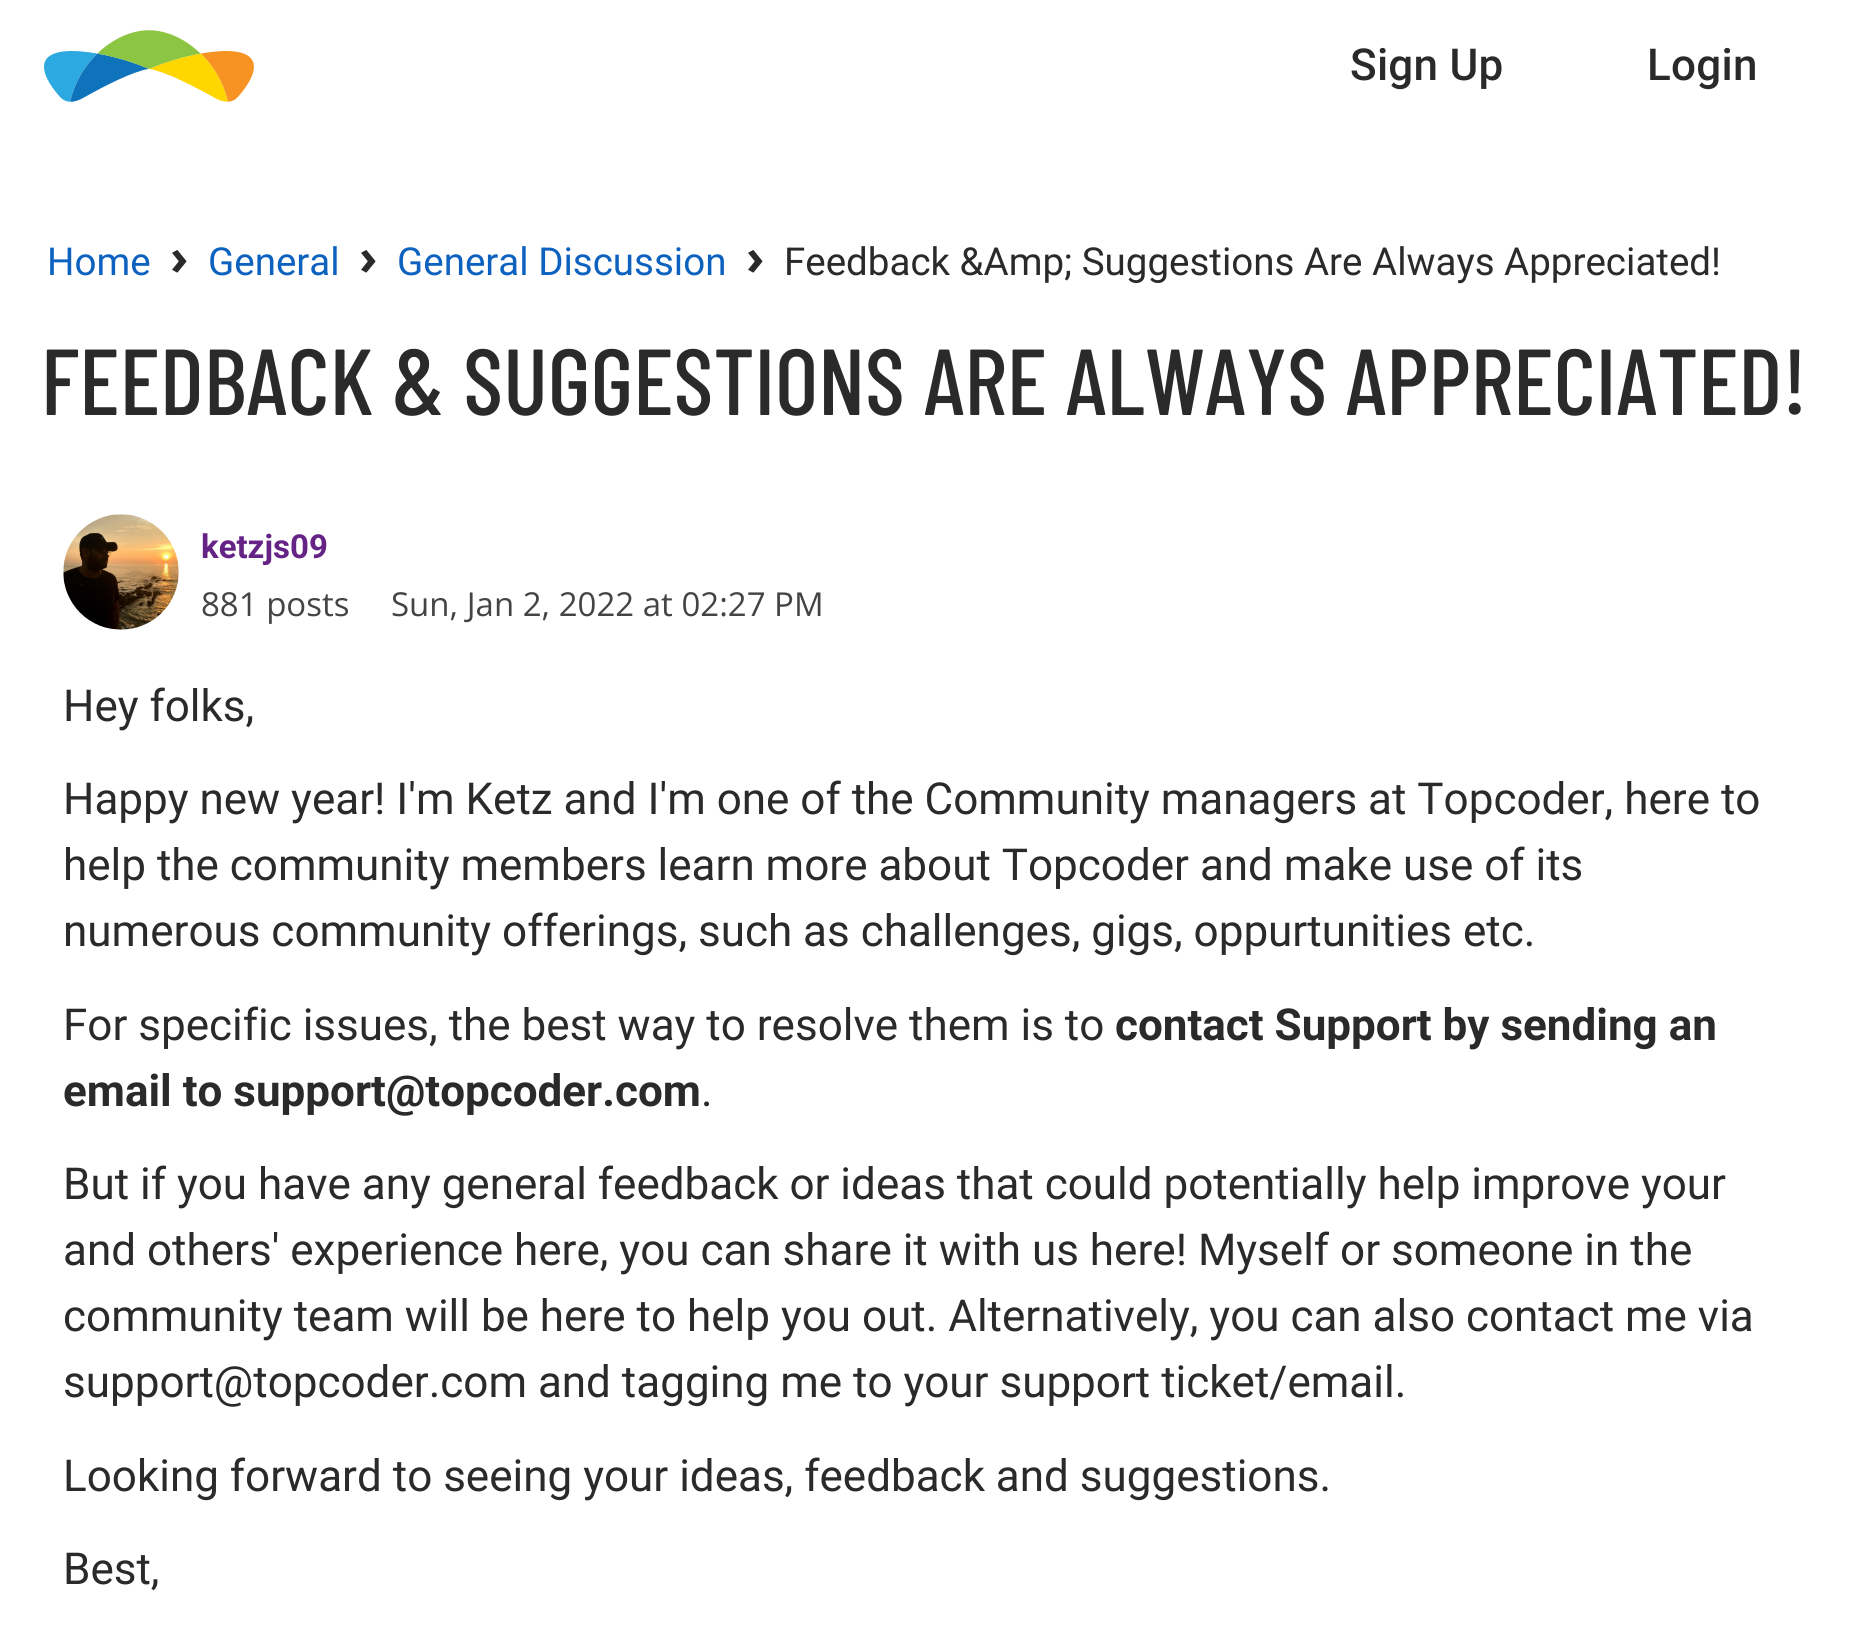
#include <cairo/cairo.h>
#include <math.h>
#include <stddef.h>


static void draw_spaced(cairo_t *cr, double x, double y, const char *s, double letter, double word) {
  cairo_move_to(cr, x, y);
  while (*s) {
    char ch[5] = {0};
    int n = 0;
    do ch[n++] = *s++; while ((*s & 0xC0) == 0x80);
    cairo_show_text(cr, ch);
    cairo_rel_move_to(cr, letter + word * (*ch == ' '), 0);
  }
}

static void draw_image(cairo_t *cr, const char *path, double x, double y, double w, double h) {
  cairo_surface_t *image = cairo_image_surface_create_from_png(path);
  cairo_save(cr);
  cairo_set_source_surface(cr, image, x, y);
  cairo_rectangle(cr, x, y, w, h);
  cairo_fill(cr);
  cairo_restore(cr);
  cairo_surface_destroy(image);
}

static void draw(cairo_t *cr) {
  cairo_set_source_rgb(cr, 1, 1, 1);
  cairo_paint(cr);
  draw_image(cr, "images/1.png", 44, 30, 210, 72);
  draw_image(cr, "images/2.png", 63, 514, 116, 116);
  cairo_select_font_face(cr, "Roboto Medium", CAIRO_FONT_SLANT_NORMAL, CAIRO_FONT_WEIGHT_NORMAL);
  cairo_set_font_size(cr, 44);
  cairo_set_source_rgb(cr, 42 / 255.0, 42 / 255.0, 42 / 255.0);
  draw_spaced(cr, 1350, 80, "Sign Up", 0.25, 0);
  draw_spaced(cr, 1647, 80, "Login", 0.25, 0);
  cairo_select_font_face(cr, "Roboto", CAIRO_FONT_SLANT_NORMAL, CAIRO_FONT_WEIGHT_NORMAL);
  cairo_set_font_size(cr, 38.5);
  cairo_set_source_rgb(cr, 13 / 255.0, 97 / 255.0, 191 / 255.0);
  cairo_move_to(cr, 47, 275);
  cairo_show_text(cr, "Home");
  cairo_select_font_face(cr, "Open Sans", CAIRO_FONT_SLANT_NORMAL, CAIRO_FONT_WEIGHT_BOLD);
  cairo_set_font_size(cr, 50);
  cairo_set_source_rgb(cr, 42 / 255.0, 42 / 255.0, 42 / 255.0);
  cairo_move_to(cr, 170, 275);
  cairo_show_text(cr, "›");
  cairo_select_font_face(cr, "Roboto", CAIRO_FONT_SLANT_NORMAL, CAIRO_FONT_WEIGHT_NORMAL);
  cairo_set_font_size(cr, 38.5);
  cairo_set_source_rgb(cr, 13 / 255.0, 97 / 255.0, 191 / 255.0);
  cairo_move_to(cr, 208, 275);
  cairo_show_text(cr, "General");
  cairo_select_font_face(cr, "Open Sans", CAIRO_FONT_SLANT_NORMAL, CAIRO_FONT_WEIGHT_BOLD);
  cairo_set_font_size(cr, 50);
  cairo_set_source_rgb(cr, 42 / 255.0, 42 / 255.0, 42 / 255.0);
  cairo_move_to(cr, 359, 275);
  cairo_show_text(cr, "›");
  cairo_select_font_face(cr, "Roboto", CAIRO_FONT_SLANT_NORMAL, CAIRO_FONT_WEIGHT_NORMAL);
  cairo_set_font_size(cr, 38.5);
  cairo_set_source_rgb(cr, 13 / 255.0, 97 / 255.0, 191 / 255.0);
  cairo_move_to(cr, 397, 275);
  cairo_show_text(cr, "General Discussion");
  cairo_select_font_face(cr, "Open Sans", CAIRO_FONT_SLANT_NORMAL, CAIRO_FONT_WEIGHT_BOLD);
  cairo_set_font_size(cr, 50);
  cairo_set_source_rgb(cr, 42 / 255.0, 42 / 255.0, 42 / 255.0);
  cairo_move_to(cr, 746, 275);
  cairo_show_text(cr, "›");
  cairo_select_font_face(cr, "Roboto", CAIRO_FONT_SLANT_NORMAL, CAIRO_FONT_WEIGHT_NORMAL);
  cairo_set_font_size(cr, 38.5);
  cairo_move_to(cr, 784, 275);
  cairo_show_text(cr, "Feedback &Amp; Suggestions Are Always Appreciated!");
  cairo_select_font_face(cr, "Barlow Condensed Medium", CAIRO_FONT_SLANT_NORMAL, CAIRO_FONT_WEIGHT_NORMAL);
  cairo_set_font_size(cr, 93.5);
  cairo_move_to(cr, 41, 415);
  cairo_show_text(cr, "FEEDBACK & SUGGESTIONS ARE ALWAYS APPRECIATED!");
  cairo_select_font_face(cr, "Roboto", CAIRO_FONT_SLANT_NORMAL, CAIRO_FONT_WEIGHT_BOLD);
  cairo_set_font_size(cr, 33);
  cairo_set_source_rgb(cr, 101 / 255.0, 35 / 255.0, 133 / 255.0);
  cairo_move_to(cr, 201, 558);
  cairo_show_text(cr, "ketzjs09");
  cairo_select_font_face(cr, "Open Sans", CAIRO_FONT_SLANT_NORMAL, CAIRO_FONT_WEIGHT_NORMAL);
  cairo_set_source_rgb(cr, 68 / 255.0, 68 / 255.0, 68 / 255.0);
  cairo_move_to(cr, 201, 616);
  cairo_show_text(cr, "881 posts");
  cairo_move_to(cr, 391, 616);
  cairo_show_text(cr, "Sun, Jan 2, 2022 at 02:27 PM");
  cairo_select_font_face(cr, "Roboto", CAIRO_FONT_SLANT_NORMAL, CAIRO_FONT_WEIGHT_NORMAL);
  cairo_set_font_size(cr, 44);
  cairo_set_source_rgb(cr, 42 / 255.0, 42 / 255.0, 42 / 255.0);
  cairo_move_to(cr, 63, 721);
  cairo_show_text(cr, "Hey folks,");
  cairo_move_to(cr, 63, 814);
  cairo_show_text(cr, "Happy new year! I'm Ketz and I'm one of the Community managers at Topcoder, here to");
  cairo_move_to(cr, 63, 880);
  cairo_show_text(cr, "help the community members learn more about Topcoder and make use of its");
  cairo_move_to(cr, 63, 946);
  cairo_show_text(cr, "numerous community offerings, such as challenges, gigs, oppurtunities etc.");
  cairo_move_to(cr, 63, 1040);
  cairo_show_text(cr, "For specific issues, the best way to resolve them is to");
  cairo_select_font_face(cr, "Roboto", CAIRO_FONT_SLANT_NORMAL, CAIRO_FONT_WEIGHT_BOLD);
  cairo_move_to(cr, 1115, 1040);
  cairo_show_text(cr, "contact Support by sending an");
  cairo_move_to(cr, 63, 1106);
  cairo_show_text(cr, "email to support@topcoder.com");
  cairo_select_font_face(cr, "Roboto", CAIRO_FONT_SLANT_NORMAL, CAIRO_FONT_WEIGHT_NORMAL);
  cairo_move_to(cr, 701, 1106);
  cairo_show_text(cr, ".");
  cairo_move_to(cr, 63, 1199);
  cairo_show_text(cr, "But if you have any general feedback or ideas that could potentially help improve your");
  cairo_move_to(cr, 63, 1265);
  cairo_show_text(cr, "and others' experience here, you can share it with us here! Myself or someone in the");
  cairo_move_to(cr, 63, 1331);
  cairo_show_text(cr, "community team will be here to help you out. Alternatively, you can also contact me via");
  cairo_move_to(cr, 63, 1397);
  cairo_show_text(cr, "support@topcoder.com and tagging me to your support ticket/email.");
  cairo_move_to(cr, 63, 1491);
  cairo_show_text(cr, "Looking forward to seeing your ideas, feedback and suggestions.");
  cairo_move_to(cr, 63, 1584);
  cairo_show_text(cr, "Best,");
}

int main(void) {
  cairo_surface_t *surface = cairo_image_surface_create(CAIRO_FORMAT_RGB24, 1850, 1631);
  cairo_t *cr = cairo_create(surface);
  cairo_font_options_t *options = cairo_font_options_create();
  cairo_font_options_set_hint_metrics(options, CAIRO_HINT_METRICS_OFF);
  cairo_font_options_set_hint_style(options, CAIRO_HINT_STYLE_NONE);
  cairo_set_font_options(cr, options);
  cairo_set_miter_limit(cr, 4);
  draw(cr);
  cairo_surface_write_to_png(surface, "out.png");
  cairo_font_options_destroy(options);
  cairo_destroy(cr);
  cairo_surface_destroy(surface);
  return 0;
}
